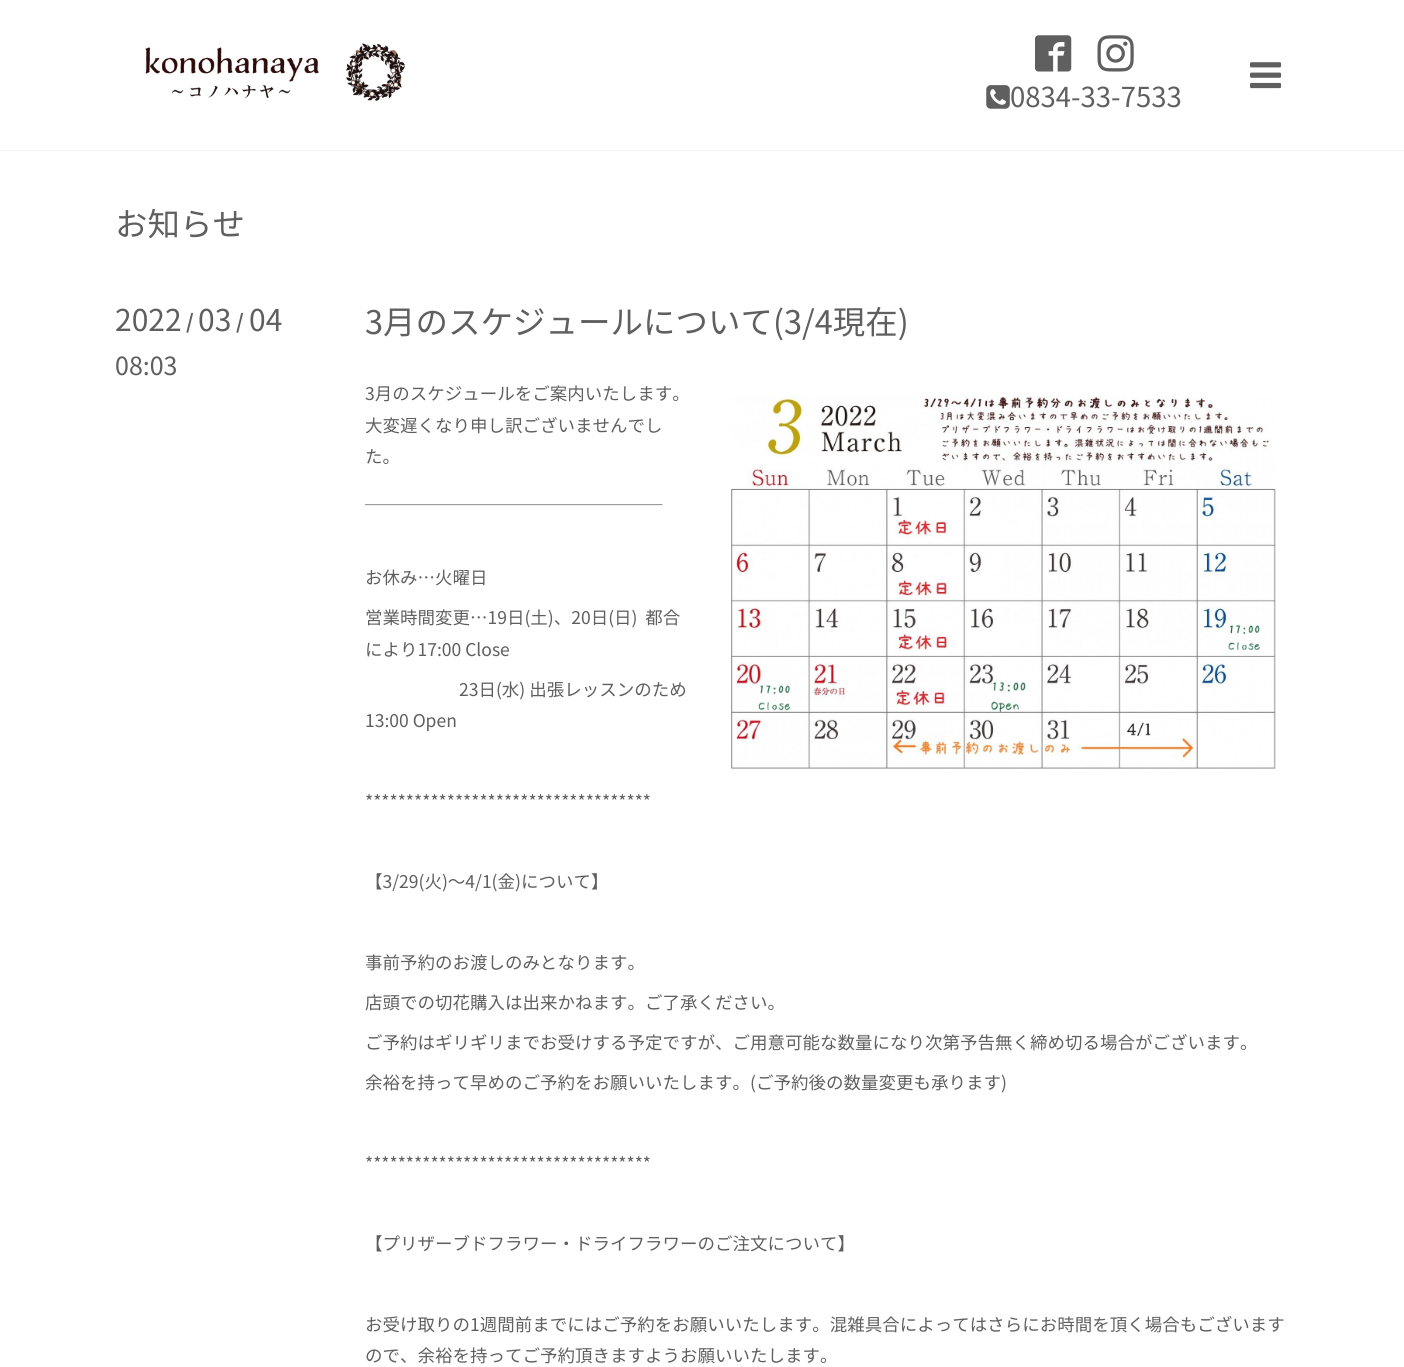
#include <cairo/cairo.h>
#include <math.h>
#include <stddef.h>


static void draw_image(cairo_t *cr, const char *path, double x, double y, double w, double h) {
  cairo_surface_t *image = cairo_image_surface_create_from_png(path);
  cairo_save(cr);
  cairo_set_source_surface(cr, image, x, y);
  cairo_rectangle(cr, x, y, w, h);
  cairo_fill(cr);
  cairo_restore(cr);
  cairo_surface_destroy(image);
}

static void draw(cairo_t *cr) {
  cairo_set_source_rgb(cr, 1, 1, 1);
  cairo_paint(cr);
  cairo_set_source_rgb(cr, 242 / 255.0, 242 / 255.0, 242 / 255.0);
  cairo_rectangle(cr, 0, 150, 1404, 1);
  cairo_fill(cr);
  draw_image(cr, "images/1.png", 145, 43, 261, 58);
  draw_image(cr, "images/2.png", 1250, 62, 32, 27);
  draw_image(cr, "images/3.png", 1035, 35, 37, 37);
  draw_image(cr, "images/4.png", 1097, 35, 37, 37);
  draw_image(cr, "images/5.png", 986, 85, 24, 24);
  draw_image(cr, "images/6.png", 731, 396, 545, 373);
  cairo_select_font_face(cr, "Noto Sans JP", CAIRO_FONT_SLANT_NORMAL, CAIRO_FONT_WEIGHT_NORMAL);
  cairo_set_font_size(cr, 27.5);
  cairo_set_source_rgb(cr, 95 / 255.0, 95 / 255.0, 95 / 255.0);
  cairo_move_to(cr, 1010, 107);
  cairo_show_text(cr, "0834-33-7533");
  cairo_set_font_size(cr, 32.5);
  cairo_move_to(cr, 115, 236);
  cairo_show_text(cr, "お知らせ");
  cairo_set_font_size(cr, 30);
  cairo_move_to(cr, 115, 331);
  cairo_show_text(cr, "2022");
  cairo_select_font_face(cr, "Noto Sans JP", CAIRO_FONT_SLANT_NORMAL, CAIRO_FONT_WEIGHT_BOLD);
  cairo_set_font_size(cr, 20);
  cairo_move_to(cr, 186, 329);
  cairo_show_text(cr, "/");
  cairo_select_font_face(cr, "Noto Sans JP", CAIRO_FONT_SLANT_NORMAL, CAIRO_FONT_WEIGHT_NORMAL);
  cairo_set_font_size(cr, 30);
  cairo_move_to(cr, 198, 331);
  cairo_show_text(cr, "03");
  cairo_select_font_face(cr, "Noto Sans JP", CAIRO_FONT_SLANT_NORMAL, CAIRO_FONT_WEIGHT_BOLD);
  cairo_set_font_size(cr, 20);
  cairo_move_to(cr, 236, 329);
  cairo_show_text(cr, "/");
  cairo_select_font_face(cr, "Noto Sans JP", CAIRO_FONT_SLANT_NORMAL, CAIRO_FONT_WEIGHT_NORMAL);
  cairo_set_font_size(cr, 30);
  cairo_move_to(cr, 249, 331);
  cairo_show_text(cr, "04");
  cairo_set_font_size(cr, 25);
  cairo_move_to(cr, 115, 375);
  cairo_show_text(cr, "08:03");
  cairo_set_font_size(cr, 32.5);
  cairo_move_to(cr, 365, 334);
  cairo_show_text(cr, "3月のスケジュールについて(3/4現在)");
  cairo_set_font_size(cr, 17.5);
  cairo_move_to(cr, 365, 400);
  cairo_show_text(cr, "3月のスケジュールをご案内いたします。");
  cairo_move_to(cr, 365, 432);
  cairo_show_text(cr, "大変遅くなり申し訳ございませんでし");
  cairo_move_to(cr, 365, 463);
  cairo_show_text(cr, "た。");
  cairo_move_to(cr, 365, 503);
  cairo_show_text(cr, "＿＿＿＿＿＿＿＿＿＿＿＿＿＿＿＿＿");
  cairo_move_to(cr, 365, 584);
  cairo_show_text(cr, "お休み…火曜日");
  cairo_move_to(cr, 365, 624);
  cairo_show_text(cr, "営業時間変更…19日(土)、20日(日)  都合");
  cairo_move_to(cr, 365, 656);
  cairo_show_text(cr, "により17:00 Close");
  cairo_move_to(cr, 459, 696);
  cairo_show_text(cr, "23日(水) 出張レッスンのため");
  cairo_move_to(cr, 365, 727);
  cairo_show_text(cr, "13:00 Open");
  cairo_move_to(cr, 365, 808);
  cairo_show_text(cr, "***********************************");
  cairo_move_to(cr, 365, 888);
  cairo_show_text(cr, "【3/29(火)〜4/1(金)について】");
  cairo_move_to(cr, 365, 969);
  cairo_show_text(cr, "事前予約のお渡しのみとなります。");
  cairo_move_to(cr, 365, 1009);
  cairo_show_text(cr, "店頭での切花購入は出来かねます。ご了承ください。");
  cairo_move_to(cr, 365, 1049);
  cairo_show_text(cr, "ご予約はギリギリまでお受けする予定ですが、ご用意可能な数量になり次第予告無く締め切る場合がございます。");
  cairo_move_to(cr, 365, 1089);
  cairo_show_text(cr, "余裕を持って早めのご予約をお願いいたします。(ご予約後の数量変更も承ります)");
  cairo_move_to(cr, 365, 1170);
  cairo_show_text(cr, "***********************************");
  cairo_move_to(cr, 365, 1250);
  cairo_show_text(cr, "【プリザーブドフラワー・ドライフラワーのご注文について】");
  cairo_move_to(cr, 365, 1331);
  cairo_show_text(cr, "お受け取りの1週間前までにはご予約をお願いいたします。混雑具合によってはさらにお時間を頂く場合もございます");
  cairo_move_to(cr, 365, 1362);
  cairo_show_text(cr, "ので、余裕を持ってご予約頂きますようお願いいたします。");
}

int main(void) {
  cairo_surface_t *surface = cairo_image_surface_create(CAIRO_FORMAT_RGB24, 1404, 1367);
  cairo_t *cr = cairo_create(surface);
  cairo_font_options_t *options = cairo_font_options_create();
  cairo_font_options_set_hint_metrics(options, CAIRO_HINT_METRICS_OFF);
  cairo_font_options_set_hint_style(options, CAIRO_HINT_STYLE_NONE);
  cairo_set_font_options(cr, options);
  cairo_set_miter_limit(cr, 4);
  draw(cr);
  cairo_surface_write_to_png(surface, "out.png");
  cairo_font_options_destroy(options);
  cairo_destroy(cr);
  cairo_surface_destroy(surface);
  return 0;
}
